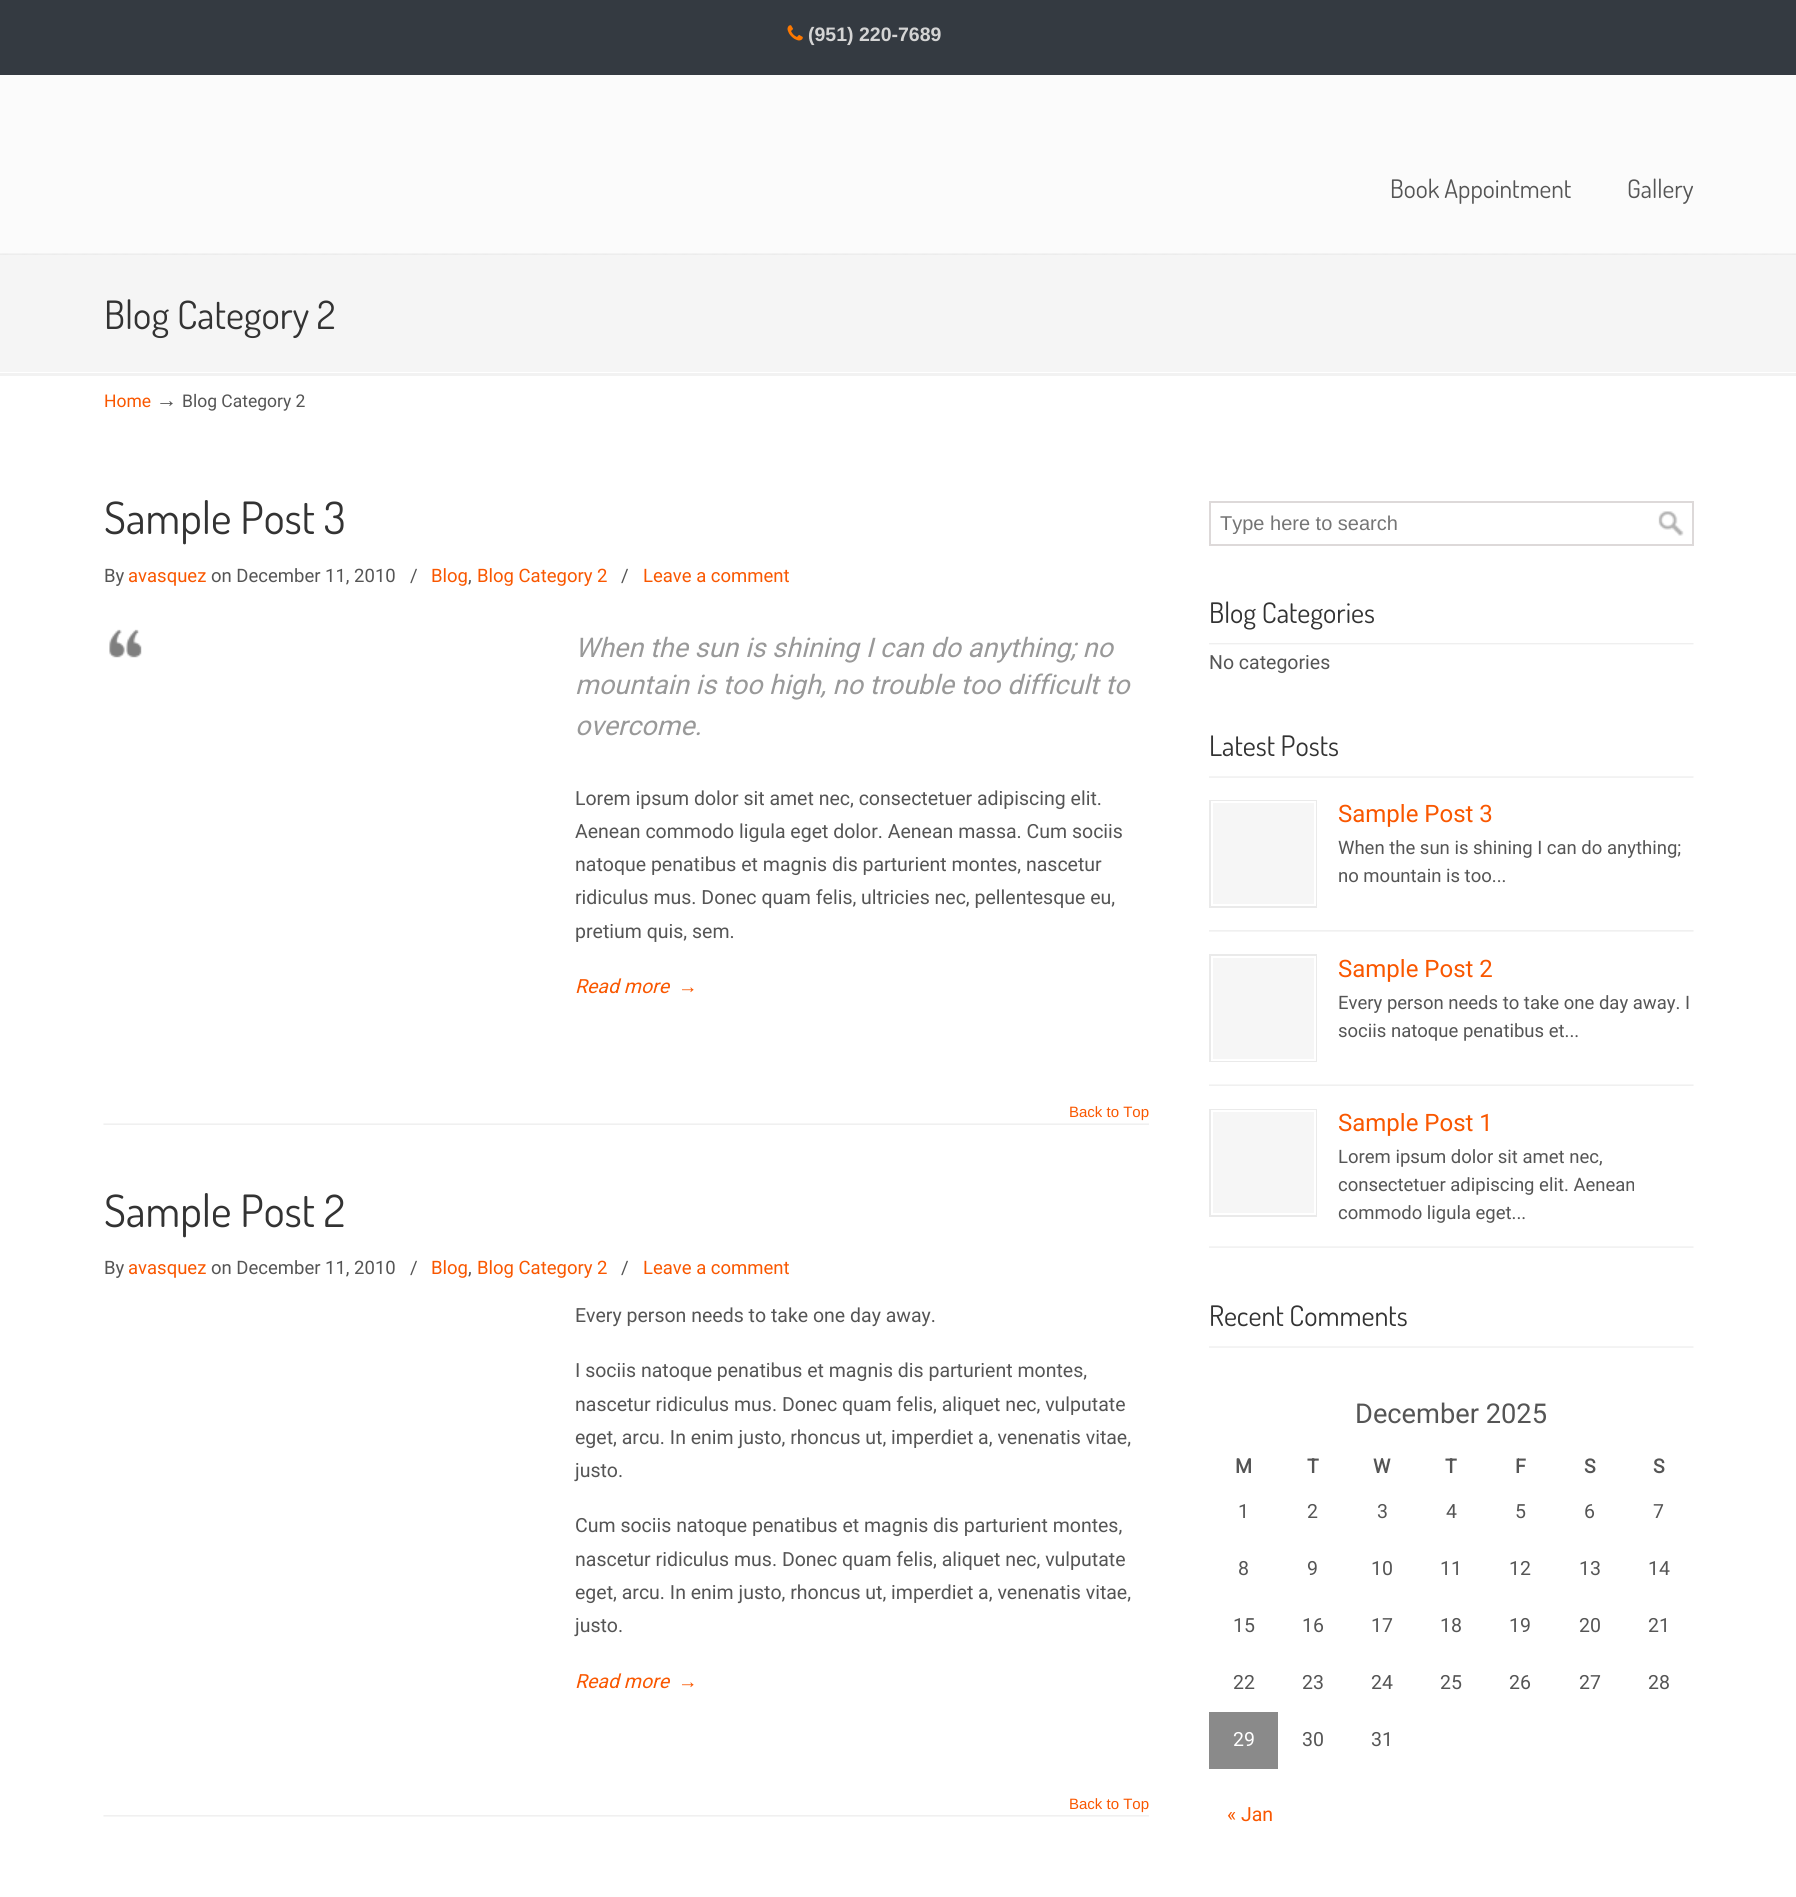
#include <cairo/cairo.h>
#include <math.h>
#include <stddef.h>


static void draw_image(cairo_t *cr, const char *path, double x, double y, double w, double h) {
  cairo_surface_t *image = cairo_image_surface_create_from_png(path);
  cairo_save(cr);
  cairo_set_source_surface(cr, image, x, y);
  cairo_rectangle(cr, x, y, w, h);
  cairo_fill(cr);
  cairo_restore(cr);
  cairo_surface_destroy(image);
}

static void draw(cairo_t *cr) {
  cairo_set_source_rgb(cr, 251 / 255.0, 251 / 255.0, 251 / 255.0);
  cairo_paint(cr);
  cairo_set_source_rgb(cr, 52 / 255.0, 58 / 255.0, 65 / 255.0);
  cairo_rectangle(cr, 0, 0, 1796, 75);
  cairo_fill(cr);
  draw_image(cr, "images/1.png", 787, 25, 16, 16);
  draw_image(cr, "images/2.png", 0, 253, 1796, 2);
  cairo_set_source_rgb(cr, 245 / 255.0, 245 / 255.0, 245 / 255.0);
  cairo_rectangle(cr, 0, 255, 1796, 117);
  cairo_fill(cr);
  cairo_set_source_rgb(cr, 1, 1, 1);
  cairo_rectangle(cr, 0, 372, 1796, 1525);
  cairo_fill(cr);
  cairo_set_source_rgb(cr, 242 / 255.0, 242 / 255.0, 242 / 255.0);
  cairo_rectangle(cr, 0, 373, 1796, 3);
  cairo_fill(cr);
  draw_image(cr, "images/3.png", 109, 629, 33, 29);
  draw_image(cr, "images/4.png", 103, 1123, 1046, 2);
  draw_image(cr, "images/5.png", 103, 1815, 1046, 2);
  cairo_rectangle(cr, 1210, 502, 483, 43);
  cairo_set_source_rgb(cr, 221 / 255.0, 217 / 255.0, 217 / 255.0);
  cairo_stroke(cr);
  draw_image(cr, "images/6.png", 1658, 511, 26, 25);
  draw_image(cr, "images/7.png", 1209, 643, 485, 2);
  draw_image(cr, "images/8.png", 1209, 776, 485, 2);
  draw_image(cr, "images/9.png", 1209, 930, 485, 2);
  cairo_set_source_rgb(cr, 246 / 255.0, 246 / 255.0, 246 / 255.0);
  cairo_rectangle(cr, 1213, 803, 101, 101);
  cairo_fill(cr);
  cairo_rectangle(cr, 1210, 801, 106, 106);
  cairo_set_source_rgb(cr, 234 / 255.0, 234 / 255.0, 234 / 255.0);
  cairo_stroke(cr);
  cairo_rectangle(cr, 1212, 802, 103, 103);
  cairo_set_source_rgb(cr, 1, 1, 1);
  cairo_stroke(cr);
  draw_image(cr, "images/10.png", 1209, 1084, 485, 2);
  cairo_set_source_rgb(cr, 246 / 255.0, 246 / 255.0, 246 / 255.0);
  cairo_rectangle(cr, 1213, 958, 101, 101);
  cairo_fill(cr);
  cairo_rectangle(cr, 1210, 955, 106, 106);
  cairo_set_source_rgb(cr, 234 / 255.0, 234 / 255.0, 234 / 255.0);
  cairo_stroke(cr);
  cairo_rectangle(cr, 1212, 957, 103, 103);
  cairo_set_source_rgb(cr, 1, 1, 1);
  cairo_stroke(cr);
  draw_image(cr, "images/11.png", 1209, 1246, 485, 2);
  cairo_set_source_rgb(cr, 246 / 255.0, 246 / 255.0, 246 / 255.0);
  cairo_rectangle(cr, 1213, 1112, 101, 101);
  cairo_fill(cr);
  cairo_rectangle(cr, 1210, 1110, 106, 106);
  cairo_set_source_rgb(cr, 234 / 255.0, 234 / 255.0, 234 / 255.0);
  cairo_stroke(cr);
  cairo_rectangle(cr, 1212, 1111, 103, 103);
  cairo_set_source_rgb(cr, 1, 1, 1);
  cairo_stroke(cr);
  draw_image(cr, "images/12.png", 1209, 1346, 485, 2);
  cairo_set_source_rgb(cr, 138 / 255.0, 138 / 255.0, 138 / 255.0);
  cairo_rectangle(cr, 1209, 1712, 69, 57);
  cairo_fill(cr);
  cairo_select_font_face(cr, "Liberation Sans", CAIRO_FONT_SLANT_NORMAL, CAIRO_FONT_WEIGHT_BOLD);
  cairo_set_font_size(cr, 19.5);
  cairo_set_source_rgb(cr, 212 / 255.0, 212 / 255.0, 212 / 255.0);
  cairo_move_to(cr, 808, 41);
  cairo_show_text(cr, "(951) 220-7689");
  cairo_select_font_face(cr, "Dosis", CAIRO_FONT_SLANT_NORMAL, CAIRO_FONT_WEIGHT_NORMAL);
  cairo_set_font_size(cr, 25.5);
  cairo_set_source_rgb(cr, 85 / 255.0, 85 / 255.0, 85 / 255.0);
  cairo_move_to(cr, 1390, 198);
  cairo_show_text(cr, "Book Appointment");
  cairo_move_to(cr, 1627, 198);
  cairo_show_text(cr, "Gallery");
  cairo_set_font_size(cr, 39);
  cairo_set_source_rgb(cr, 51 / 255.0, 51 / 255.0, 51 / 255.0);
  cairo_move_to(cr, 104, 329);
  cairo_show_text(cr, "Blog Category 2");
  cairo_select_font_face(cr, "Roboto", CAIRO_FONT_SLANT_NORMAL, CAIRO_FONT_WEIGHT_NORMAL);
  cairo_set_font_size(cr, 17.5);
  cairo_set_source_rgb(cr, 249 / 255.0, 87 / 255.0, 0);
  cairo_move_to(cr, 104, 407);
  cairo_show_text(cr, "Home");
  cairo_select_font_face(cr, "Liberation Serif", CAIRO_FONT_SLANT_NORMAL, CAIRO_FONT_WEIGHT_NORMAL);
  cairo_set_font_size(cr, 21);
  cairo_set_source_rgb(cr, 85 / 255.0, 85 / 255.0, 85 / 255.0);
  cairo_move_to(cr, 156, 407);
  cairo_show_text(cr, "→");
  cairo_select_font_face(cr, "Roboto", CAIRO_FONT_SLANT_NORMAL, CAIRO_FONT_WEIGHT_NORMAL);
  cairo_set_font_size(cr, 17.5);
  cairo_move_to(cr, 182, 407);
  cairo_show_text(cr, "Blog Category 2");
  cairo_select_font_face(cr, "Dosis", CAIRO_FONT_SLANT_NORMAL, CAIRO_FONT_WEIGHT_NORMAL);
  cairo_set_font_size(cr, 44.5);
  cairo_set_source_rgb(cr, 51 / 255.0, 51 / 255.0, 51 / 255.0);
  cairo_move_to(cr, 104, 534);
  cairo_show_text(cr, "Sample Post 3");
  cairo_select_font_face(cr, "Roboto", CAIRO_FONT_SLANT_NORMAL, CAIRO_FONT_WEIGHT_NORMAL);
  cairo_set_font_size(cr, 18.5);
  cairo_set_source_rgb(cr, 85 / 255.0, 85 / 255.0, 85 / 255.0);
  cairo_move_to(cr, 104, 582);
  cairo_show_text(cr, "By");
  cairo_set_source_rgb(cr, 249 / 255.0, 87 / 255.0, 0);
  cairo_move_to(cr, 128, 582);
  cairo_show_text(cr, "avasquez");
  cairo_set_source_rgb(cr, 85 / 255.0, 85 / 255.0, 85 / 255.0);
  cairo_move_to(cr, 211, 582);
  cairo_show_text(cr, "on December 11, 2010");
  cairo_move_to(cr, 410, 582);
  cairo_show_text(cr, "/");
  cairo_set_source_rgb(cr, 249 / 255.0, 87 / 255.0, 0);
  cairo_move_to(cr, 431, 582);
  cairo_show_text(cr, "Blog");
  cairo_set_source_rgb(cr, 85 / 255.0, 85 / 255.0, 85 / 255.0);
  cairo_move_to(cr, 468, 582);
  cairo_show_text(cr, ",");
  cairo_set_source_rgb(cr, 249 / 255.0, 87 / 255.0, 0);
  cairo_move_to(cr, 477, 582);
  cairo_show_text(cr, "Blog Category 2");
  cairo_set_source_rgb(cr, 85 / 255.0, 85 / 255.0, 85 / 255.0);
  cairo_move_to(cr, 621, 582);
  cairo_show_text(cr, "/");
  cairo_set_source_rgb(cr, 249 / 255.0, 87 / 255.0, 0);
  cairo_move_to(cr, 643, 582);
  cairo_show_text(cr, "Leave a comment");
  cairo_select_font_face(cr, "Roboto", CAIRO_FONT_SLANT_ITALIC, CAIRO_FONT_WEIGHT_NORMAL);
  cairo_set_font_size(cr, 27);
  cairo_set_source_rgb(cr, 153 / 255.0, 153 / 255.0, 153 / 255.0);
  cairo_move_to(cr, 575, 657);
  cairo_show_text(cr, "When the sun is shining I can do anything; no");
  cairo_move_to(cr, 575, 694);
  cairo_show_text(cr, "mountain is too high, no trouble too difficult to");
  cairo_move_to(cr, 575, 735);
  cairo_show_text(cr, "overcome.");
  cairo_select_font_face(cr, "Roboto", CAIRO_FONT_SLANT_NORMAL, CAIRO_FONT_WEIGHT_NORMAL);
  cairo_set_font_size(cr, 19.5);
  cairo_set_source_rgb(cr, 85 / 255.0, 85 / 255.0, 85 / 255.0);
  cairo_move_to(cr, 575, 805);
  cairo_show_text(cr, "Lorem ipsum dolor sit amet nec, consectetuer adipiscing elit.");
  cairo_move_to(cr, 575, 838);
  cairo_show_text(cr, "Aenean commodo ligula eget dolor. Aenean massa. Cum sociis");
  cairo_move_to(cr, 575, 871);
  cairo_show_text(cr, "natoque penatibus et magnis dis parturient montes, nascetur");
  cairo_move_to(cr, 575, 904);
  cairo_show_text(cr, "ridiculus mus. Donec quam felis, ultricies nec, pellentesque eu,");
  cairo_move_to(cr, 575, 938);
  cairo_show_text(cr, "pretium quis, sem.");
  cairo_select_font_face(cr, "Roboto", CAIRO_FONT_SLANT_ITALIC, CAIRO_FONT_WEIGHT_NORMAL);
  cairo_set_source_rgb(cr, 249 / 255.0, 87 / 255.0, 0);
  cairo_move_to(cr, 575, 993);
  cairo_show_text(cr, "Read more");
  cairo_select_font_face(cr, "Liberation Serif", CAIRO_FONT_SLANT_NORMAL, CAIRO_FONT_WEIGHT_NORMAL);
  cairo_move_to(cr, 678, 993);
  cairo_show_text(cr, "→");
  cairo_select_font_face(cr, "Liberation Sans", CAIRO_FONT_SLANT_NORMAL, CAIRO_FONT_WEIGHT_NORMAL);
  cairo_set_font_size(cr, 15);
  cairo_move_to(cr, 1069, 1117);
  cairo_show_text(cr, "Back to Top");
  cairo_select_font_face(cr, "Dosis", CAIRO_FONT_SLANT_NORMAL, CAIRO_FONT_WEIGHT_NORMAL);
  cairo_set_font_size(cr, 44.5);
  cairo_set_source_rgb(cr, 51 / 255.0, 51 / 255.0, 51 / 255.0);
  cairo_move_to(cr, 104, 1227);
  cairo_show_text(cr, "Sample Post 2");
  cairo_select_font_face(cr, "Roboto", CAIRO_FONT_SLANT_NORMAL, CAIRO_FONT_WEIGHT_NORMAL);
  cairo_set_font_size(cr, 18.5);
  cairo_set_source_rgb(cr, 85 / 255.0, 85 / 255.0, 85 / 255.0);
  cairo_move_to(cr, 104, 1274);
  cairo_show_text(cr, "By");
  cairo_set_source_rgb(cr, 249 / 255.0, 87 / 255.0, 0);
  cairo_move_to(cr, 128, 1274);
  cairo_show_text(cr, "avasquez");
  cairo_set_source_rgb(cr, 85 / 255.0, 85 / 255.0, 85 / 255.0);
  cairo_move_to(cr, 211, 1274);
  cairo_show_text(cr, "on December 11, 2010");
  cairo_move_to(cr, 410, 1274);
  cairo_show_text(cr, "/");
  cairo_set_source_rgb(cr, 249 / 255.0, 87 / 255.0, 0);
  cairo_move_to(cr, 431, 1274);
  cairo_show_text(cr, "Blog");
  cairo_set_source_rgb(cr, 85 / 255.0, 85 / 255.0, 85 / 255.0);
  cairo_move_to(cr, 468, 1274);
  cairo_show_text(cr, ",");
  cairo_set_source_rgb(cr, 249 / 255.0, 87 / 255.0, 0);
  cairo_move_to(cr, 477, 1274);
  cairo_show_text(cr, "Blog Category 2");
  cairo_set_source_rgb(cr, 85 / 255.0, 85 / 255.0, 85 / 255.0);
  cairo_move_to(cr, 621, 1274);
  cairo_show_text(cr, "/");
  cairo_set_source_rgb(cr, 249 / 255.0, 87 / 255.0, 0);
  cairo_move_to(cr, 643, 1274);
  cairo_show_text(cr, "Leave a comment");
  cairo_set_font_size(cr, 19.5);
  cairo_set_source_rgb(cr, 85 / 255.0, 85 / 255.0, 85 / 255.0);
  cairo_move_to(cr, 575, 1322);
  cairo_show_text(cr, "Every person needs to take one day away.");
  cairo_move_to(cr, 575, 1377);
  cairo_show_text(cr, "I sociis natoque penatibus et magnis dis parturient montes,");
  cairo_move_to(cr, 575, 1411);
  cairo_show_text(cr, "nascetur ridiculus mus. Donec quam felis, aliquet nec, vulputate");
  cairo_move_to(cr, 575, 1444);
  cairo_show_text(cr, "eget, arcu. In enim justo, rhoncus ut, imperdiet a, venenatis vitae,");
  cairo_move_to(cr, 575, 1477);
  cairo_show_text(cr, "justo.");
  cairo_move_to(cr, 575, 1532);
  cairo_show_text(cr, "Cum sociis natoque penatibus et magnis dis parturient montes,");
  cairo_move_to(cr, 575, 1566);
  cairo_show_text(cr, "nascetur ridiculus mus. Donec quam felis, aliquet nec, vulputate");
  cairo_move_to(cr, 575, 1599);
  cairo_show_text(cr, "eget, arcu. In enim justo, rhoncus ut, imperdiet a, venenatis vitae,");
  cairo_move_to(cr, 575, 1632);
  cairo_show_text(cr, "justo.");
  cairo_select_font_face(cr, "Roboto", CAIRO_FONT_SLANT_ITALIC, CAIRO_FONT_WEIGHT_NORMAL);
  cairo_set_source_rgb(cr, 249 / 255.0, 87 / 255.0, 0);
  cairo_move_to(cr, 575, 1688);
  cairo_show_text(cr, "Read more");
  cairo_select_font_face(cr, "Liberation Serif", CAIRO_FONT_SLANT_NORMAL, CAIRO_FONT_WEIGHT_NORMAL);
  cairo_move_to(cr, 678, 1688);
  cairo_show_text(cr, "→");
  cairo_select_font_face(cr, "Liberation Sans", CAIRO_FONT_SLANT_NORMAL, CAIRO_FONT_WEIGHT_NORMAL);
  cairo_set_font_size(cr, 15);
  cairo_move_to(cr, 1069, 1809);
  cairo_show_text(cr, "Back to Top");
  cairo_save(cr);
  cairo_rectangle(cr, 1220, 512, 463, 22);
  cairo_clip(cr);
  cairo_set_font_size(cr, 20);
  cairo_set_source_rgb(cr, 117 / 255.0, 117 / 255.0, 117 / 255.0);
  cairo_move_to(cr, 1220, 530);
  cairo_show_text(cr, "Type here to search");
  cairo_restore(cr);
  cairo_select_font_face(cr, "Dosis", CAIRO_FONT_SLANT_NORMAL, CAIRO_FONT_WEIGHT_NORMAL);
  cairo_set_font_size(cr, 28.25);
  cairo_set_source_rgb(cr, 51 / 255.0, 51 / 255.0, 51 / 255.0);
  cairo_move_to(cr, 1209, 623);
  cairo_show_text(cr, "Blog Categories");
  cairo_select_font_face(cr, "Roboto", CAIRO_FONT_SLANT_NORMAL, CAIRO_FONT_WEIGHT_NORMAL);
  cairo_set_font_size(cr, 19.5);
  cairo_set_source_rgb(cr, 85 / 255.0, 85 / 255.0, 85 / 255.0);
  cairo_move_to(cr, 1209, 669);
  cairo_show_text(cr, "No categories");
  cairo_select_font_face(cr, "Dosis", CAIRO_FONT_SLANT_NORMAL, CAIRO_FONT_WEIGHT_NORMAL);
  cairo_set_font_size(cr, 28.25);
  cairo_set_source_rgb(cr, 51 / 255.0, 51 / 255.0, 51 / 255.0);
  cairo_move_to(cr, 1209, 756);
  cairo_show_text(cr, "Latest Posts");
  cairo_select_font_face(cr, "Roboto", CAIRO_FONT_SLANT_NORMAL, CAIRO_FONT_WEIGHT_NORMAL);
  cairo_set_font_size(cr, 24);
  cairo_set_source_rgb(cr, 249 / 255.0, 87 / 255.0, 0);
  cairo_move_to(cr, 1338, 822);
  cairo_show_text(cr, "Sample Post 3");
  cairo_set_font_size(cr, 18.5);
  cairo_set_source_rgb(cr, 85 / 255.0, 85 / 255.0, 85 / 255.0);
  cairo_move_to(cr, 1338, 854);
  cairo_show_text(cr, "When the sun is shining I can do anything;");
  cairo_move_to(cr, 1338, 882);
  cairo_show_text(cr, "no mountain is too...");
  cairo_set_font_size(cr, 24);
  cairo_set_source_rgb(cr, 249 / 255.0, 87 / 255.0, 0);
  cairo_move_to(cr, 1338, 977);
  cairo_show_text(cr, "Sample Post 2");
  cairo_set_font_size(cr, 18.5);
  cairo_set_source_rgb(cr, 85 / 255.0, 85 / 255.0, 85 / 255.0);
  cairo_move_to(cr, 1338, 1009);
  cairo_show_text(cr, "Every person needs to take one day away. I");
  cairo_move_to(cr, 1338, 1037);
  cairo_show_text(cr, "sociis natoque penatibus et...");
  cairo_set_font_size(cr, 24);
  cairo_set_source_rgb(cr, 249 / 255.0, 87 / 255.0, 0);
  cairo_move_to(cr, 1338, 1131);
  cairo_show_text(cr, "Sample Post 1");
  cairo_set_font_size(cr, 18.5);
  cairo_set_source_rgb(cr, 85 / 255.0, 85 / 255.0, 85 / 255.0);
  cairo_move_to(cr, 1338, 1163);
  cairo_show_text(cr, "Lorem ipsum dolor sit amet nec,");
  cairo_move_to(cr, 1338, 1191);
  cairo_show_text(cr, "consectetuer adipiscing elit. Aenean");
  cairo_move_to(cr, 1338, 1219);
  cairo_show_text(cr, "commodo ligula eget...");
  cairo_select_font_face(cr, "Dosis", CAIRO_FONT_SLANT_NORMAL, CAIRO_FONT_WEIGHT_NORMAL);
  cairo_set_font_size(cr, 28.25);
  cairo_set_source_rgb(cr, 51 / 255.0, 51 / 255.0, 51 / 255.0);
  cairo_move_to(cr, 1209, 1326);
  cairo_show_text(cr, "Recent Comments");
  cairo_select_font_face(cr, "Roboto", CAIRO_FONT_SLANT_NORMAL, CAIRO_FONT_WEIGHT_NORMAL);
  cairo_set_font_size(cr, 27.25);
  cairo_set_source_rgb(cr, 85 / 255.0, 85 / 255.0, 85 / 255.0);
  cairo_move_to(cr, 1355, 1423);
  cairo_show_text(cr, "December 2025");
  cairo_select_font_face(cr, "Roboto", CAIRO_FONT_SLANT_NORMAL, CAIRO_FONT_WEIGHT_BOLD);
  cairo_set_font_size(cr, 19.5);
  cairo_move_to(cr, 1235, 1473);
  cairo_show_text(cr, "M");
  cairo_move_to(cr, 1307, 1473);
  cairo_show_text(cr, "T");
  cairo_move_to(cr, 1373, 1473);
  cairo_show_text(cr, "W");
  cairo_move_to(cr, 1445, 1473);
  cairo_show_text(cr, "T");
  cairo_move_to(cr, 1515, 1473);
  cairo_show_text(cr, "F");
  cairo_move_to(cr, 1584, 1473);
  cairo_show_text(cr, "S");
  cairo_move_to(cr, 1653, 1473);
  cairo_show_text(cr, "S");
  cairo_select_font_face(cr, "Roboto", CAIRO_FONT_SLANT_NORMAL, CAIRO_FONT_WEIGHT_NORMAL);
  cairo_move_to(cr, 1238, 1518);
  cairo_show_text(cr, "1");
  cairo_move_to(cr, 1307, 1518);
  cairo_show_text(cr, "2");
  cairo_move_to(cr, 1377, 1518);
  cairo_show_text(cr, "3");
  cairo_move_to(cr, 1446, 1518);
  cairo_show_text(cr, "4");
  cairo_move_to(cr, 1515, 1518);
  cairo_show_text(cr, "5");
  cairo_move_to(cr, 1584, 1518);
  cairo_show_text(cr, "6");
  cairo_move_to(cr, 1653, 1518);
  cairo_show_text(cr, "7");
  cairo_move_to(cr, 1238, 1575);
  cairo_show_text(cr, "8");
  cairo_move_to(cr, 1307, 1575);
  cairo_show_text(cr, "9");
  cairo_move_to(cr, 1371, 1575);
  cairo_show_text(cr, "10");
  cairo_move_to(cr, 1440, 1575);
  cairo_show_text(cr, "11");
  cairo_move_to(cr, 1509, 1575);
  cairo_show_text(cr, "12");
  cairo_move_to(cr, 1579, 1575);
  cairo_show_text(cr, "13");
  cairo_move_to(cr, 1648, 1575);
  cairo_show_text(cr, "14");
  cairo_move_to(cr, 1233, 1632);
  cairo_show_text(cr, "15");
  cairo_move_to(cr, 1302, 1632);
  cairo_show_text(cr, "16");
  cairo_move_to(cr, 1371, 1632);
  cairo_show_text(cr, "17");
  cairo_move_to(cr, 1440, 1632);
  cairo_show_text(cr, "18");
  cairo_move_to(cr, 1509, 1632);
  cairo_show_text(cr, "19");
  cairo_move_to(cr, 1579, 1632);
  cairo_show_text(cr, "20");
  cairo_move_to(cr, 1648, 1632);
  cairo_show_text(cr, "21");
  cairo_move_to(cr, 1233, 1689);
  cairo_show_text(cr, "22");
  cairo_move_to(cr, 1302, 1689);
  cairo_show_text(cr, "23");
  cairo_move_to(cr, 1371, 1689);
  cairo_show_text(cr, "24");
  cairo_move_to(cr, 1440, 1689);
  cairo_show_text(cr, "25");
  cairo_move_to(cr, 1509, 1689);
  cairo_show_text(cr, "26");
  cairo_move_to(cr, 1579, 1689);
  cairo_show_text(cr, "27");
  cairo_move_to(cr, 1648, 1689);
  cairo_show_text(cr, "28");
  cairo_set_source_rgb(cr, 1, 1, 1);
  cairo_move_to(cr, 1233, 1746);
  cairo_show_text(cr, "29");
  cairo_set_source_rgb(cr, 85 / 255.0, 85 / 255.0, 85 / 255.0);
  cairo_move_to(cr, 1302, 1746);
  cairo_show_text(cr, "30");
  cairo_move_to(cr, 1371, 1746);
  cairo_show_text(cr, "31");
  cairo_set_source_rgb(cr, 249 / 255.0, 87 / 255.0, 0);
  cairo_move_to(cr, 1227, 1821);
  cairo_show_text(cr, "« Jan");
}

int main(void) {
  cairo_surface_t *surface = cairo_image_surface_create(CAIRO_FORMAT_RGB24, 1796, 1897);
  cairo_t *cr = cairo_create(surface);
  cairo_font_options_t *options = cairo_font_options_create();
  cairo_font_options_set_hint_metrics(options, CAIRO_HINT_METRICS_OFF);
  cairo_font_options_set_hint_style(options, CAIRO_HINT_STYLE_NONE);
  cairo_set_font_options(cr, options);
  cairo_set_miter_limit(cr, 4);
  draw(cr);
  cairo_surface_write_to_png(surface, "out.png");
  cairo_font_options_destroy(options);
  cairo_destroy(cr);
  cairo_surface_destroy(surface);
  return 0;
}
